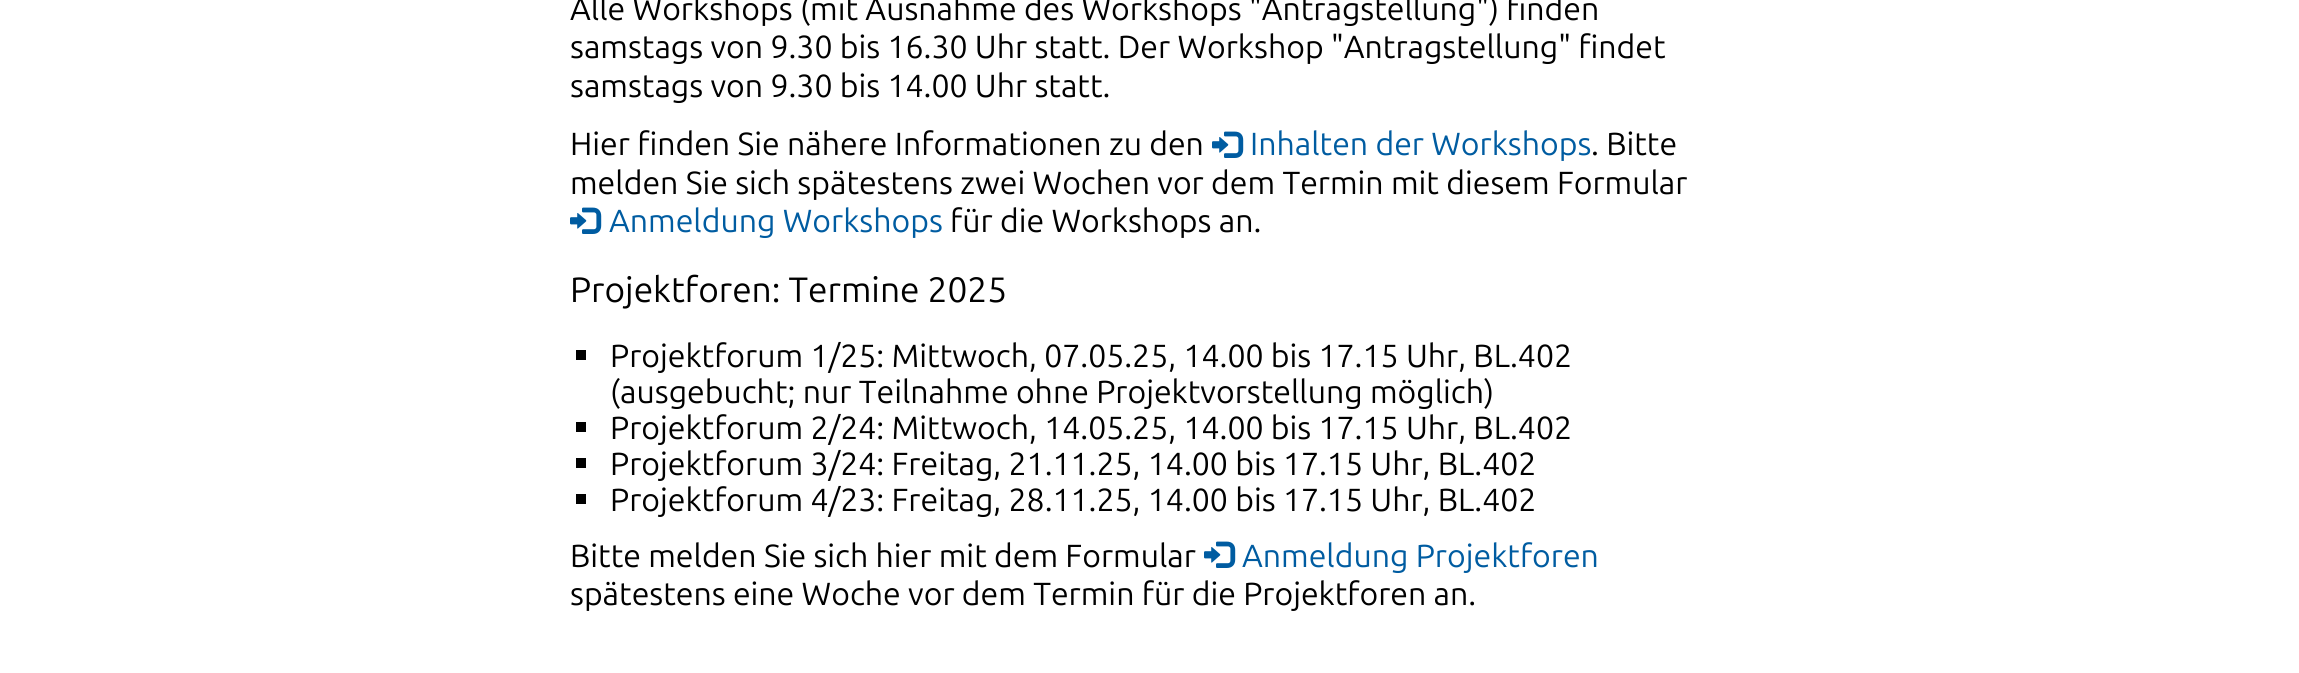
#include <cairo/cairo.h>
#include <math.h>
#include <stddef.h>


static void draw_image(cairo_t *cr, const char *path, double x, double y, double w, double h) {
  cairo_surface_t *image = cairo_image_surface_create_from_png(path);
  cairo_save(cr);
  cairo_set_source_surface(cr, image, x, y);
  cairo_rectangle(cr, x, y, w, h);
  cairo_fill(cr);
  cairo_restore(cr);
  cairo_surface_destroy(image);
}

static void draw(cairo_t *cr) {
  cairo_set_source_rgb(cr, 1, 1, 1);
  cairo_paint(cr);
  draw_image(cr, "images/1.png", 1212, 131, 32, 27);
  draw_image(cr, "images/1.png", 570, 207, 32, 27);
  cairo_set_source_rgb(cr, 0, 0, 0);
  cairo_rectangle(cr, 576, 350, 10, 10);
  cairo_fill(cr);
  cairo_rectangle(cr, 576, 422, 10, 10);
  cairo_fill(cr);
  cairo_rectangle(cr, 576, 458, 10, 10);
  cairo_fill(cr);
  cairo_rectangle(cr, 576, 494, 10, 10);
  cairo_fill(cr);
  draw_image(cr, "images/1.png", 1204, 541, 32, 27);
  cairo_select_font_face(cr, "Ubuntu", CAIRO_FONT_SLANT_NORMAL, CAIRO_FONT_WEIGHT_NORMAL);
  cairo_set_font_size(cr, 32);
  cairo_move_to(cr, 570, 20);
  cairo_show_text(cr, "Alle Workshops (mit Ausnahme des Workshops \"Antragstellung\") finden");
  cairo_move_to(cr, 570, 58);
  cairo_show_text(cr, "samstags von 9.30 bis 16.30 Uhr statt. Der Workshop \"Antragstellung\" findet");
  cairo_move_to(cr, 570, 97);
  cairo_show_text(cr, "samstags von 9.30 bis 14.00 Uhr statt.");
  cairo_move_to(cr, 570, 155);
  cairo_show_text(cr, "Hier finden Sie nähere Informationen zu den");
  cairo_set_source_rgb(cr, 0, 92 / 255.0, 161 / 255.0);
  cairo_move_to(cr, 1250, 155);
  cairo_show_text(cr, "Inhalten der Workshops");
  cairo_set_source_rgb(cr, 0, 0, 0);
  cairo_move_to(cr, 1591, 155);
  cairo_show_text(cr, ". Bitte");
  cairo_move_to(cr, 570, 194);
  cairo_show_text(cr, "melden Sie sich spätestens zwei Wochen vor dem Termin mit diesem Formular");
  cairo_set_source_rgb(cr, 0, 92 / 255.0, 161 / 255.0);
  cairo_move_to(cr, 609, 232);
  cairo_show_text(cr, "Anmeldung Workshops");
  cairo_set_source_rgb(cr, 0, 0, 0);
  cairo_move_to(cr, 950, 232);
  cairo_show_text(cr, "für die Workshops an.");
  cairo_set_font_size(cr, 35.25);
  cairo_move_to(cr, 570, 302);
  cairo_show_text(cr, "Projektforen: Termine 2025");
  cairo_set_font_size(cr, 32);
  cairo_move_to(cr, 610, 367);
  cairo_show_text(cr, "Projektforum 1/25: Mittwoch, 07.05.25, 14.00 bis 17.15 Uhr, BL.402");
  cairo_move_to(cr, 610, 403);
  cairo_show_text(cr, "(ausgebucht; nur Teilnahme ohne Projektvorstellung möglich)");
  cairo_move_to(cr, 610, 439);
  cairo_show_text(cr, "Projektforum 2/24: Mittwoch, 14.05.25, 14.00 bis 17.15 Uhr, BL.402");
  cairo_move_to(cr, 610, 475);
  cairo_show_text(cr, "Projektforum 3/24: Freitag, 21.11.25, 14.00 bis 17.15 Uhr, BL.402");
  cairo_move_to(cr, 610, 511);
  cairo_show_text(cr, "Projektforum 4/23: Freitag, 28.11.25, 14.00 bis 17.15 Uhr, BL.402");
  cairo_move_to(cr, 570, 567);
  cairo_show_text(cr, "Bitte melden Sie sich hier mit dem Formular");
  cairo_set_source_rgb(cr, 0, 92 / 255.0, 161 / 255.0);
  cairo_move_to(cr, 1242, 567);
  cairo_show_text(cr, "Anmeldung Projektforen");
  cairo_set_source_rgb(cr, 0, 0, 0);
  cairo_move_to(cr, 570, 605);
  cairo_show_text(cr, "spätestens eine Woche vor dem Termin für die Projektforen an.");
}

int main(void) {
  cairo_surface_t *surface = cairo_image_surface_create(CAIRO_FORMAT_RGB24, 2299, 673);
  cairo_t *cr = cairo_create(surface);
  cairo_font_options_t *options = cairo_font_options_create();
  cairo_font_options_set_hint_metrics(options, CAIRO_HINT_METRICS_OFF);
  cairo_font_options_set_hint_style(options, CAIRO_HINT_STYLE_NONE);
  cairo_set_font_options(cr, options);
  cairo_set_miter_limit(cr, 4);
  draw(cr);
  cairo_surface_write_to_png(surface, "out.png");
  cairo_font_options_destroy(options);
  cairo_destroy(cr);
  cairo_surface_destroy(surface);
  return 0;
}
